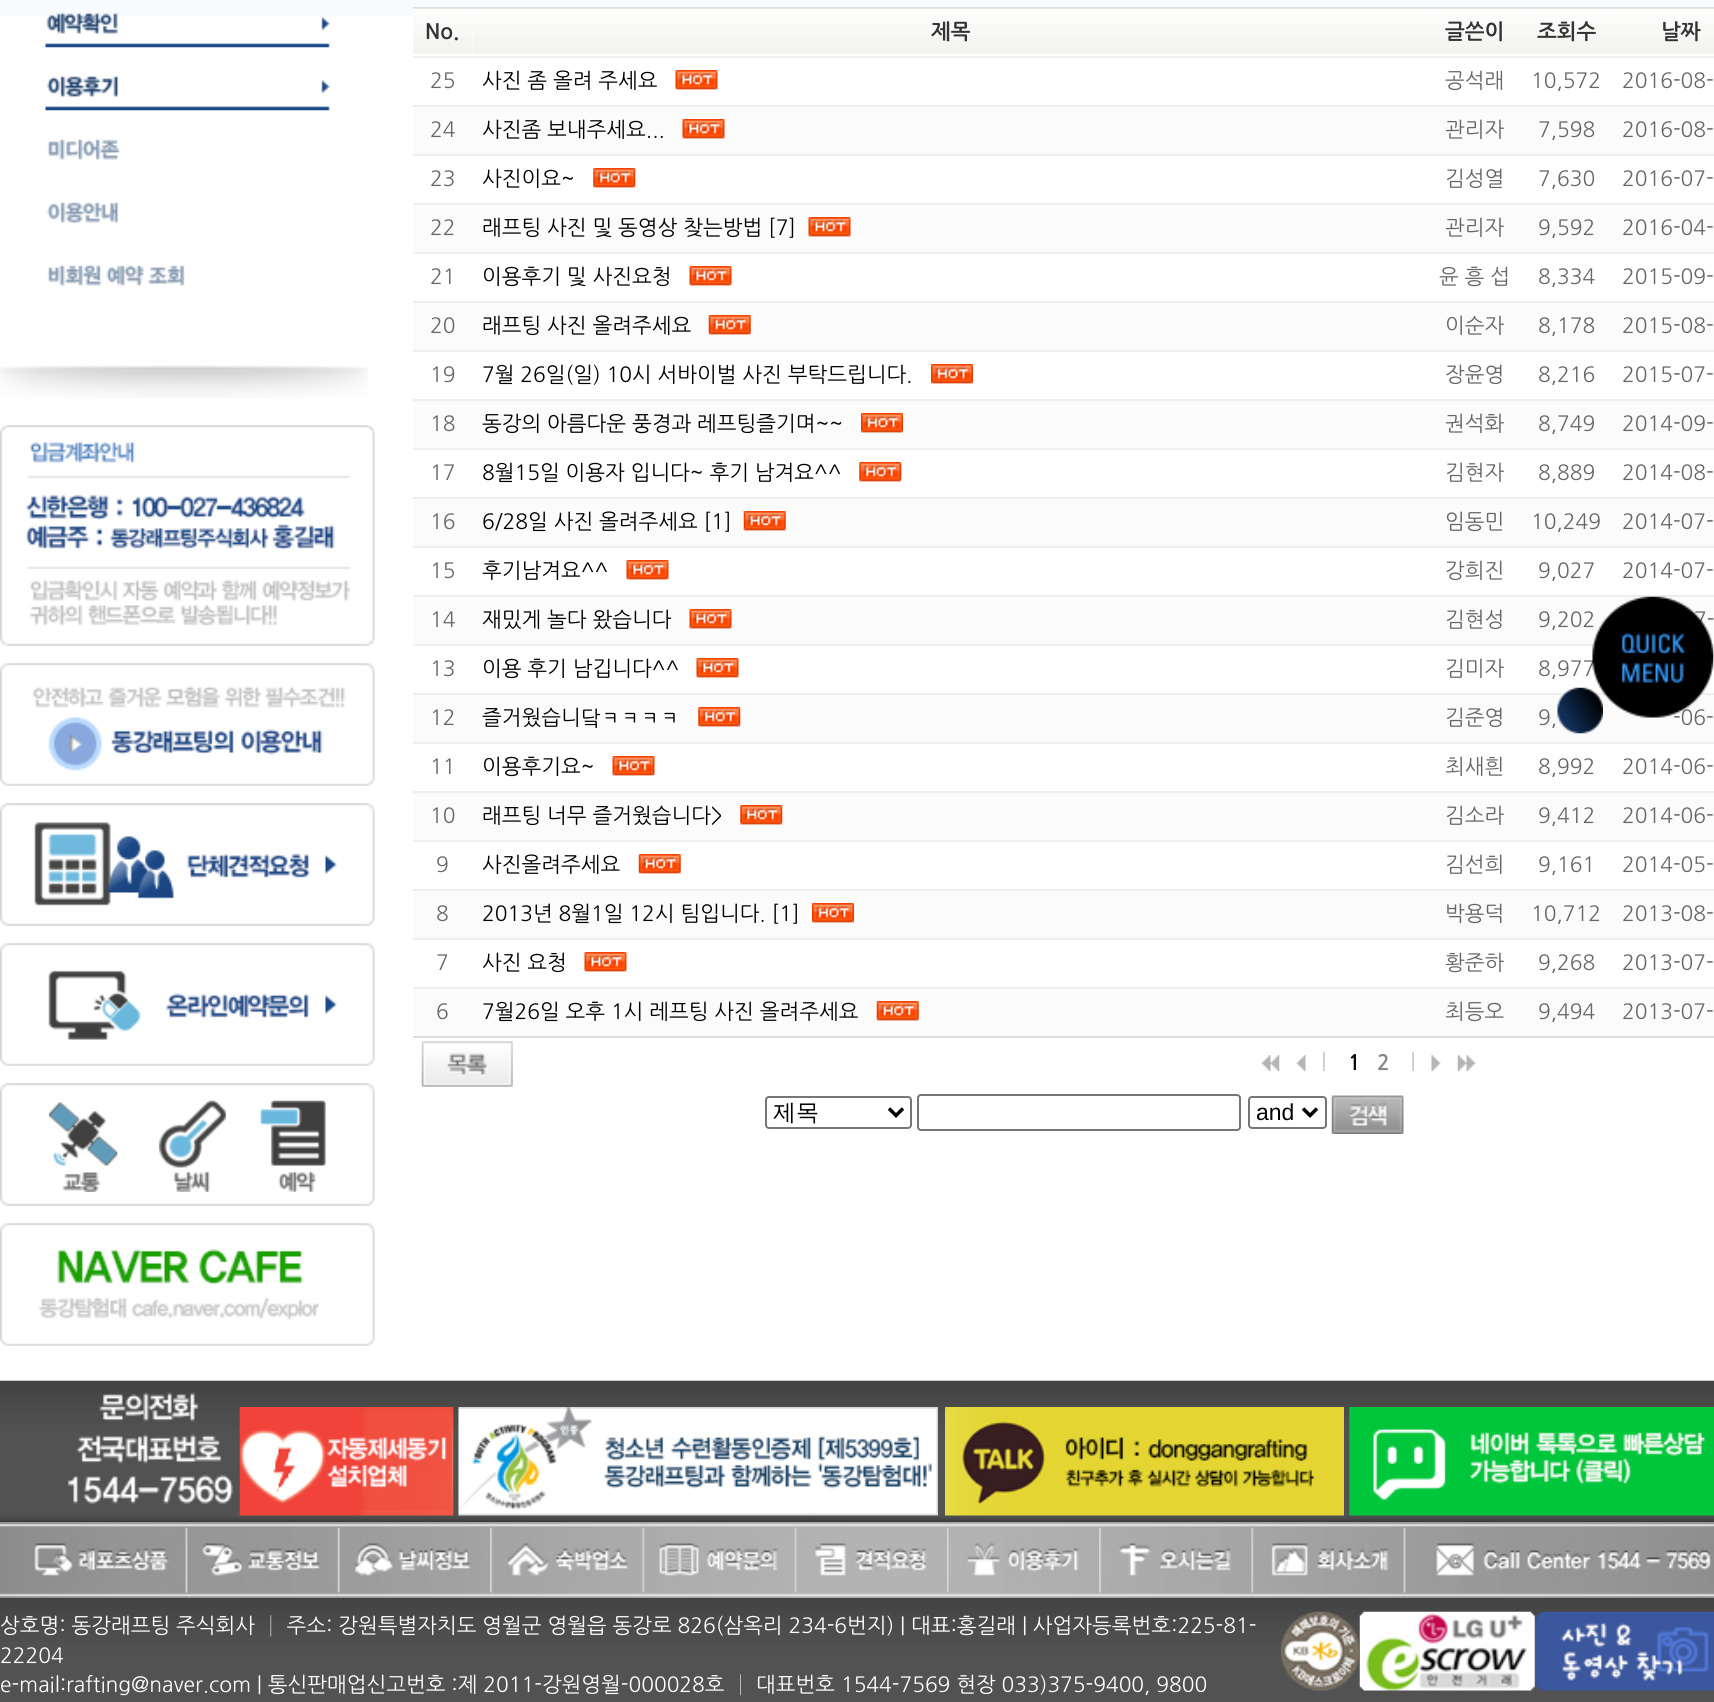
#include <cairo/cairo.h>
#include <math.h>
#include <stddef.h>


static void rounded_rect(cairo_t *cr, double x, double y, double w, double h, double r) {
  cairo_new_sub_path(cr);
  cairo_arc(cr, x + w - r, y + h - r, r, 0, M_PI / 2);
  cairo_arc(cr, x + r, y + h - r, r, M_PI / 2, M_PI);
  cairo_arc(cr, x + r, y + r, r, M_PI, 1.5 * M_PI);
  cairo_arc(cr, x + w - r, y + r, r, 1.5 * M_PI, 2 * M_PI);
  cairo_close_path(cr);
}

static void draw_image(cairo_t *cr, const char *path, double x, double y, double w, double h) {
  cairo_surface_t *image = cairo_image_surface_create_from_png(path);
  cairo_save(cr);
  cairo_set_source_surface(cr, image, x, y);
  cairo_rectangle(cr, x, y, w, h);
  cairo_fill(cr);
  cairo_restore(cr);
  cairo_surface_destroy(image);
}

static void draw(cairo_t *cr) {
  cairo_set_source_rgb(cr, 1, 1, 1);
  cairo_paint(cr);
  cairo_set_source_rgb(cr, 248 / 255.0, 251 / 255.0, 253 / 255.0);
  cairo_rectangle(cr, 0, 0, 1714, 16);
  cairo_fill(cr);
  draw_image(cr, "images/1.png", 0, 365, 368, 33);
  draw_image(cr, "images/2.png", 45, 12, 285, 36);
  draw_image(cr, "images/3.png", 45, 75, 285, 36);
  draw_image(cr, "images/4.png", 47, 138, 73, 22);
  draw_image(cr, "images/5.png", 47, 202, 72, 22);
  draw_image(cr, "images/6.png", 47, 264, 138, 22);
  draw_image(cr, "images/7.png", 0, 425, 375, 221);
  draw_image(cr, "images/8.png", 0, 663, 375, 123);
  draw_image(cr, "images/9.png", 0, 803, 375, 123);
  draw_image(cr, "images/10.png", 0, 943, 375, 123);
  draw_image(cr, "images/11.png", 0, 1083, 375, 123);
  draw_image(cr, "images/12.png", 49, 1102, 69, 90);
  draw_image(cr, "images/13.png", 159, 1100, 67, 92);
  draw_image(cr, "images/14.png", 260, 1100, 66, 92);
  draw_image(cr, "images/15.png", 0, 1223, 375, 123);
  cairo_set_source_rgb(cr, 221 / 255.0, 221 / 255.0, 221 / 255.0);
  cairo_rectangle(cr, 413, 7, 1301, 2);
  cairo_fill(cr);
  cairo_rectangle(cr, 413, 1036, 1301, 2);
  cairo_fill(cr);
  cairo_set_source_rgb(cr, 1, 1, 1);
  cairo_rectangle(cr, 472, 9, 1, 7);
  cairo_fill(cr);
  draw_image(cr, "images/16.png", 413, 8, 60, 46);
  draw_image(cr, "images/17.png", 473, 8, 957, 46);
  draw_image(cr, "images/18.png", 1430, 8, 91, 46);
  draw_image(cr, "images/18.png", 1521, 8, 91, 46);
  draw_image(cr, "images/19.png", 1612, 8, 102, 46);
  cairo_set_source_rgb(cr, 238 / 255.0, 238 / 255.0, 238 / 255.0);
  cairo_rectangle(cr, 413, 56, 1301, 2);
  cairo_fill(cr);
  draw_image(cr, "images/20.png", 675, 70, 43, 20);
  cairo_set_source_rgb(cr, 251 / 255.0, 251 / 255.0, 251 / 255.0);
  cairo_rectangle(cr, 413, 107, 1301, 47);
  cairo_fill(cr);
  cairo_set_source_rgb(cr, 238 / 255.0, 238 / 255.0, 238 / 255.0);
  cairo_rectangle(cr, 413, 105, 1301, 2);
  cairo_fill(cr);
  draw_image(cr, "images/21.png", 682, 119, 43, 20);
  cairo_rectangle(cr, 413, 154, 1301, 2);
  cairo_fill(cr);
  draw_image(cr, "images/22.png", 593, 168, 43, 20);
  cairo_set_source_rgb(cr, 251 / 255.0, 251 / 255.0, 251 / 255.0);
  cairo_rectangle(cr, 413, 205, 1301, 47);
  cairo_fill(cr);
  cairo_set_source_rgb(cr, 238 / 255.0, 238 / 255.0, 238 / 255.0);
  cairo_rectangle(cr, 413, 203, 1301, 2);
  cairo_fill(cr);
  draw_image(cr, "images/23.png", 808, 217, 43, 20);
  cairo_rectangle(cr, 413, 252, 1301, 2);
  cairo_fill(cr);
  draw_image(cr, "images/20.png", 689, 266, 43, 20);
  cairo_set_source_rgb(cr, 251 / 255.0, 251 / 255.0, 251 / 255.0);
  cairo_rectangle(cr, 413, 303, 1301, 47);
  cairo_fill(cr);
  cairo_set_source_rgb(cr, 238 / 255.0, 238 / 255.0, 238 / 255.0);
  cairo_rectangle(cr, 413, 301, 1301, 2);
  cairo_fill(cr);
  draw_image(cr, "images/24.png", 708, 315, 43, 20);
  cairo_rectangle(cr, 413, 350, 1301, 2);
  cairo_fill(cr);
  draw_image(cr, "images/25.png", 931, 364, 42, 20);
  cairo_set_source_rgb(cr, 251 / 255.0, 251 / 255.0, 251 / 255.0);
  cairo_rectangle(cr, 413, 401, 1301, 47);
  cairo_fill(cr);
  cairo_set_source_rgb(cr, 238 / 255.0, 238 / 255.0, 238 / 255.0);
  cairo_rectangle(cr, 413, 399, 1301, 2);
  cairo_fill(cr);
  draw_image(cr, "images/26.png", 861, 413, 42, 20);
  cairo_rectangle(cr, 413, 448, 1301, 2);
  cairo_fill(cr);
  draw_image(cr, "images/22.png", 859, 462, 43, 20);
  cairo_set_source_rgb(cr, 251 / 255.0, 251 / 255.0, 251 / 255.0);
  cairo_rectangle(cr, 413, 499, 1301, 47);
  cairo_fill(cr);
  cairo_set_source_rgb(cr, 238 / 255.0, 238 / 255.0, 238 / 255.0);
  cairo_rectangle(cr, 413, 497, 1301, 2);
  cairo_fill(cr);
  draw_image(cr, "images/27.png", 743, 511, 43, 20);
  cairo_rectangle(cr, 413, 546, 1301, 2);
  cairo_fill(cr);
  draw_image(cr, "images/20.png", 626, 560, 43, 20);
  cairo_set_source_rgb(cr, 251 / 255.0, 251 / 255.0, 251 / 255.0);
  cairo_rectangle(cr, 413, 597, 1301, 47);
  cairo_fill(cr);
  cairo_set_source_rgb(cr, 238 / 255.0, 238 / 255.0, 238 / 255.0);
  cairo_rectangle(cr, 413, 595, 1301, 2);
  cairo_fill(cr);
  draw_image(cr, "images/21.png", 689, 609, 43, 20);
  cairo_rectangle(cr, 1711, 644, 3, 2);
  cairo_fill(cr);
  cairo_rectangle(cr, 413, 644, 1182, 2);
  cairo_fill(cr);
  draw_image(cr, "images/20.png", 696, 658, 43, 20);
  cairo_set_source_rgb(cr, 251 / 255.0, 251 / 255.0, 251 / 255.0);
  cairo_rectangle(cr, 413, 695, 1301, 47);
  cairo_fill(cr);
  cairo_set_source_rgb(cr, 238 / 255.0, 238 / 255.0, 238 / 255.0);
  cairo_rectangle(cr, 413, 693, 1199, 2);
  cairo_fill(cr);
  draw_image(cr, "images/28.png", 698, 707, 43, 20);
  cairo_rectangle(cr, 1697, 693, 17, 2);
  cairo_fill(cr);
  cairo_rectangle(cr, 413, 742, 1301, 2);
  cairo_fill(cr);
  draw_image(cr, "images/20.png", 612, 756, 43, 20);
  cairo_set_source_rgb(cr, 251 / 255.0, 251 / 255.0, 251 / 255.0);
  cairo_rectangle(cr, 413, 793, 1301, 47);
  cairo_fill(cr);
  cairo_set_source_rgb(cr, 238 / 255.0, 238 / 255.0, 238 / 255.0);
  cairo_rectangle(cr, 413, 791, 1301, 2);
  cairo_fill(cr);
  draw_image(cr, "images/29.png", 740, 805, 43, 20);
  cairo_rectangle(cr, 413, 840, 1301, 2);
  cairo_fill(cr);
  draw_image(cr, "images/30.png", 638, 854, 43, 20);
  cairo_set_source_rgb(cr, 251 / 255.0, 251 / 255.0, 251 / 255.0);
  cairo_rectangle(cr, 413, 891, 1301, 47);
  cairo_fill(cr);
  cairo_set_source_rgb(cr, 238 / 255.0, 238 / 255.0, 238 / 255.0);
  cairo_rectangle(cr, 413, 889, 1301, 2);
  cairo_fill(cr);
  draw_image(cr, "images/31.png", 812, 903, 42, 20);
  cairo_rectangle(cr, 413, 938, 1301, 2);
  cairo_fill(cr);
  draw_image(cr, "images/20.png", 584, 952, 43, 20);
  cairo_set_source_rgb(cr, 251 / 255.0, 251 / 255.0, 251 / 255.0);
  cairo_rectangle(cr, 413, 989, 1301, 47);
  cairo_fill(cr);
  cairo_set_source_rgb(cr, 238 / 255.0, 238 / 255.0, 238 / 255.0);
  cairo_rectangle(cr, 413, 987, 1301, 2);
  cairo_fill(cr);
  draw_image(cr, "images/24.png", 876, 1001, 43, 20);
  draw_image(cr, "images/32.png", 421, 1041, 92, 46);
  draw_image(cr, "images/33.png", 1261, 1055, 19, 16);
  draw_image(cr, "images/34.png", 1296, 1055, 10, 16);
  draw_image(cr, "images/35.png", 1323, 1051, 2, 20);
  draw_image(cr, "images/36.png", 1412, 1051, 2, 20);
  draw_image(cr, "images/37.png", 1431, 1055, 10, 16);
  draw_image(cr, "images/38.png", 1457, 1055, 19, 16);
  rounded_rect(cr, 766, 1097, 145, 31, 3);
  cairo_set_source_rgb(cr, 118 / 255.0, 118 / 255.0, 118 / 255.0);
  cairo_stroke(cr);
  cairo_new_path(cr);
  cairo_move_to(cr, 889, 1108.5);
  cairo_line_to(cr, 896, 1115.5);
  cairo_line_to(cr, 903, 1108.5);
  cairo_set_source_rgb(cr, 0, 0, 0);
  cairo_set_line_width(cr, 3.5);
  cairo_stroke(cr);
  rounded_rect(cr, 918, 1095, 322, 35, 3);
  cairo_set_source_rgb(cr, 118 / 255.0, 118 / 255.0, 118 / 255.0);
  cairo_set_line_width(cr, 2);
  cairo_stroke(cr);
  rounded_rect(cr, 1249, 1097, 77, 31, 3);
  cairo_stroke(cr);
  cairo_new_path(cr);
  cairo_move_to(cr, 1303, 1108.5);
  cairo_line_to(cr, 1310, 1115.5);
  cairo_line_to(cr, 1317, 1108.5);
  cairo_set_source_rgb(cr, 0, 0, 0);
  cairo_set_line_width(cr, 3.5);
  cairo_stroke(cr);
  draw_image(cr, "images/39.png", 1331, 1095, 73, 39);
  draw_image(cr, "images/40.png", 0, 1380, 1714, 143);
  draw_image(cr, "images/41.png", 68, 1392, 165, 112);
  draw_image(cr, "images/42.png", 239, 1407, 215, 109);
  draw_image(cr, "images/43.png", 458, 1407, 480, 109);
  draw_image(cr, "images/44.png", 945, 1407, 399, 109);
  draw_image(cr, "images/45.png", 1349, 1407, 365, 109);
  draw_image(cr, "images/57.png", 0, 1597, 1714, 105);
  draw_image(cr, "images/46.png", 0, 1522, 1714, 76);
  draw_image(cr, "images/47.png", 0, 1522, 186, 76);
  draw_image(cr, "images/48.png", 185, 1522, 153, 76);
  draw_image(cr, "images/49.png", 337, 1522, 153, 76);
  draw_image(cr, "images/50.png", 490, 1522, 153, 76);
  draw_image(cr, "images/51.png", 642, 1522, 153, 76);
  draw_image(cr, "images/52.png", 794, 1522, 153, 76);
  draw_image(cr, "images/53.png", 946, 1522, 153, 76);
  draw_image(cr, "images/54.png", 1099, 1522, 153, 76);
  draw_image(cr, "images/55.png", 1251, 1522, 153, 76);
  draw_image(cr, "images/56.png", 1403, 1522, 311, 76);
  draw_image(cr, "images/60.png", 1534, 1611, 180, 80);
  draw_image(cr, "images/59.png", 1359, 1611, 176, 80);
  draw_image(cr, "images/58.png", 1281, 1611, 79, 80);
  cairo_select_font_face(cr, "NanumGothic", CAIRO_FONT_SLANT_NORMAL, CAIRO_FONT_WEIGHT_BOLD);
  cairo_set_font_size(cr, 21);
  cairo_set_source_rgb(cr, 51 / 255.0, 51 / 255.0, 51 / 255.0);
  cairo_move_to(cr, 425, 39);
  cairo_show_text(cr, "No.");
  cairo_move_to(cr, 931, 39);
  cairo_show_text(cr, "제목");
  cairo_move_to(cr, 1445, 39);
  cairo_show_text(cr, "글쓴이");
  cairo_move_to(cr, 1537, 39);
  cairo_show_text(cr, "조회수");
  cairo_move_to(cr, 1661, 39);
  cairo_show_text(cr, "날짜");
  cairo_select_font_face(cr, "NanumGothic", CAIRO_FONT_SLANT_NORMAL, CAIRO_FONT_WEIGHT_NORMAL);
  cairo_set_source_rgb(cr, 102 / 255.0, 102 / 255.0, 102 / 255.0);
  cairo_move_to(cr, 430, 88);
  cairo_show_text(cr, "25");
  cairo_set_source_rgb(cr, 0, 0, 0);
  cairo_move_to(cr, 482, 88);
  cairo_show_text(cr, "사진 좀 올려 주세요");
  cairo_set_source_rgb(cr, 102 / 255.0, 102 / 255.0, 102 / 255.0);
  cairo_move_to(cr, 1445, 88);
  cairo_show_text(cr, "공석래");
  cairo_move_to(cr, 1531, 88);
  cairo_show_text(cr, "10,572");
  cairo_move_to(cr, 1622, 88);
  cairo_show_text(cr, "2016-08-");
  cairo_move_to(cr, 430, 137);
  cairo_show_text(cr, "24");
  cairo_set_source_rgb(cr, 0, 0, 0);
  cairo_move_to(cr, 482, 137);
  cairo_show_text(cr, "사진좀 보내주세요...");
  cairo_set_source_rgb(cr, 102 / 255.0, 102 / 255.0, 102 / 255.0);
  cairo_move_to(cr, 1445, 137);
  cairo_show_text(cr, "관리자");
  cairo_move_to(cr, 1538, 137);
  cairo_show_text(cr, "7,598");
  cairo_move_to(cr, 1622, 137);
  cairo_show_text(cr, "2016-08-");
  cairo_move_to(cr, 430, 186);
  cairo_show_text(cr, "23");
  cairo_set_source_rgb(cr, 0, 0, 0);
  cairo_move_to(cr, 482, 186);
  cairo_show_text(cr, "사진이요~");
  cairo_set_source_rgb(cr, 102 / 255.0, 102 / 255.0, 102 / 255.0);
  cairo_move_to(cr, 1445, 186);
  cairo_show_text(cr, "김성열");
  cairo_move_to(cr, 1538, 186);
  cairo_show_text(cr, "7,630");
  cairo_move_to(cr, 1622, 186);
  cairo_show_text(cr, "2016-07-");
  cairo_move_to(cr, 430, 235);
  cairo_show_text(cr, "22");
  cairo_set_source_rgb(cr, 0, 0, 0);
  cairo_move_to(cr, 482, 235);
  cairo_show_text(cr, "래프팅 사진 및 동영상 찾는방법 [7]");
  cairo_set_source_rgb(cr, 102 / 255.0, 102 / 255.0, 102 / 255.0);
  cairo_move_to(cr, 1445, 235);
  cairo_show_text(cr, "관리자");
  cairo_move_to(cr, 1538, 235);
  cairo_show_text(cr, "9,592");
  cairo_move_to(cr, 1622, 235);
  cairo_show_text(cr, "2016-04-");
  cairo_move_to(cr, 430, 284);
  cairo_show_text(cr, "21");
  cairo_set_source_rgb(cr, 0, 0, 0);
  cairo_move_to(cr, 482, 284);
  cairo_show_text(cr, "이용후기 및 사진요청");
  cairo_set_source_rgb(cr, 102 / 255.0, 102 / 255.0, 102 / 255.0);
  cairo_move_to(cr, 1439, 284);
  cairo_show_text(cr, "윤 흥 섭");
  cairo_move_to(cr, 1538, 284);
  cairo_show_text(cr, "8,334");
  cairo_move_to(cr, 1622, 284);
  cairo_show_text(cr, "2015-09-");
  cairo_move_to(cr, 430, 333);
  cairo_show_text(cr, "20");
  cairo_set_source_rgb(cr, 0, 0, 0);
  cairo_move_to(cr, 482, 333);
  cairo_show_text(cr, "래프팅 사진 올려주세요");
  cairo_set_source_rgb(cr, 102 / 255.0, 102 / 255.0, 102 / 255.0);
  cairo_move_to(cr, 1445, 333);
  cairo_show_text(cr, "이순자");
  cairo_move_to(cr, 1538, 333);
  cairo_show_text(cr, "8,178");
  cairo_move_to(cr, 1622, 333);
  cairo_show_text(cr, "2015-08-");
  cairo_move_to(cr, 430, 382);
  cairo_show_text(cr, "19");
  cairo_set_source_rgb(cr, 0, 0, 0);
  cairo_move_to(cr, 482, 382);
  cairo_show_text(cr, "7월 26일(일) 10시 서바이벌 사진 부탁드립니다.");
  cairo_set_source_rgb(cr, 102 / 255.0, 102 / 255.0, 102 / 255.0);
  cairo_move_to(cr, 1445, 382);
  cairo_show_text(cr, "장윤영");
  cairo_move_to(cr, 1538, 382);
  cairo_show_text(cr, "8,216");
  cairo_move_to(cr, 1622, 382);
  cairo_show_text(cr, "2015-07-");
  cairo_move_to(cr, 430, 431);
  cairo_show_text(cr, "18");
  cairo_set_source_rgb(cr, 0, 0, 0);
  cairo_move_to(cr, 482, 431);
  cairo_show_text(cr, "동강의 아름다운 풍경과 레프팅즐기며~~");
  cairo_set_source_rgb(cr, 102 / 255.0, 102 / 255.0, 102 / 255.0);
  cairo_move_to(cr, 1445, 431);
  cairo_show_text(cr, "권석화");
  cairo_move_to(cr, 1538, 431);
  cairo_show_text(cr, "8,749");
  cairo_move_to(cr, 1622, 431);
  cairo_show_text(cr, "2014-09-");
  cairo_move_to(cr, 430, 480);
  cairo_show_text(cr, "17");
  cairo_set_source_rgb(cr, 0, 0, 0);
  cairo_move_to(cr, 482, 480);
  cairo_show_text(cr, "8월15일 이용자 입니다~ 후기 남겨요^^");
  cairo_set_source_rgb(cr, 102 / 255.0, 102 / 255.0, 102 / 255.0);
  cairo_move_to(cr, 1445, 480);
  cairo_show_text(cr, "김현자");
  cairo_move_to(cr, 1538, 480);
  cairo_show_text(cr, "8,889");
  cairo_move_to(cr, 1622, 480);
  cairo_show_text(cr, "2014-08-");
  cairo_move_to(cr, 430, 529);
  cairo_show_text(cr, "16");
  cairo_set_source_rgb(cr, 0, 0, 0);
  cairo_move_to(cr, 482, 529);
  cairo_show_text(cr, "6/28일 사진 올려주세요 [1]");
  cairo_set_source_rgb(cr, 102 / 255.0, 102 / 255.0, 102 / 255.0);
  cairo_move_to(cr, 1445, 529);
  cairo_show_text(cr, "임동민");
  cairo_move_to(cr, 1531, 529);
  cairo_show_text(cr, "10,249");
  cairo_move_to(cr, 1622, 529);
  cairo_show_text(cr, "2014-07-");
  cairo_move_to(cr, 430, 578);
  cairo_show_text(cr, "15");
  cairo_set_source_rgb(cr, 0, 0, 0);
  cairo_move_to(cr, 482, 578);
  cairo_show_text(cr, "후기남겨요^^");
  cairo_set_source_rgb(cr, 102 / 255.0, 102 / 255.0, 102 / 255.0);
  cairo_move_to(cr, 1445, 578);
  cairo_show_text(cr, "강희진");
  cairo_move_to(cr, 1538, 578);
  cairo_show_text(cr, "9,027");
  cairo_move_to(cr, 1622, 578);
  cairo_show_text(cr, "2014-07-");
  cairo_move_to(cr, 430, 627);
  cairo_show_text(cr, "14");
  cairo_set_source_rgb(cr, 0, 0, 0);
  cairo_move_to(cr, 482, 627);
  cairo_show_text(cr, "재밌게 놀다 왔습니다");
  cairo_set_source_rgb(cr, 102 / 255.0, 102 / 255.0, 102 / 255.0);
  cairo_move_to(cr, 1445, 627);
  cairo_show_text(cr, "김현성");
  cairo_move_to(cr, 1538, 627);
  cairo_show_text(cr, "9,202");
  cairo_move_to(cr, 1694, 627);
  cairo_show_text(cr, "7-");
  cairo_move_to(cr, 430, 676);
  cairo_show_text(cr, "13");
  cairo_set_source_rgb(cr, 0, 0, 0);
  cairo_move_to(cr, 482, 676);
  cairo_show_text(cr, "이용 후기 남깁니다^^");
  cairo_set_source_rgb(cr, 102 / 255.0, 102 / 255.0, 102 / 255.0);
  cairo_move_to(cr, 1445, 676);
  cairo_show_text(cr, "김미자");
  cairo_move_to(cr, 1538, 676);
  cairo_show_text(cr, "8,977");
  cairo_move_to(cr, 430, 725);
  cairo_show_text(cr, "12");
  cairo_set_source_rgb(cr, 0, 0, 0);
  cairo_move_to(cr, 482, 725);
  cairo_show_text(cr, "즐거웠습니닼ㅋㅋㅋㅋ");
  cairo_set_source_rgb(cr, 102 / 255.0, 102 / 255.0, 102 / 255.0);
  cairo_move_to(cr, 1445, 725);
  cairo_show_text(cr, "김준영");
  cairo_move_to(cr, 1538, 725);
  cairo_show_text(cr, "9,");
  cairo_move_to(cr, 1673, 725);
  cairo_show_text(cr, "-06-");
  cairo_move_to(cr, 430, 774);
  cairo_show_text(cr, "11");
  cairo_set_source_rgb(cr, 0, 0, 0);
  cairo_move_to(cr, 482, 774);
  cairo_show_text(cr, "이용후기요~");
  cairo_set_source_rgb(cr, 102 / 255.0, 102 / 255.0, 102 / 255.0);
  cairo_move_to(cr, 1445, 774);
  cairo_show_text(cr, "최새흰");
  cairo_move_to(cr, 1538, 774);
  cairo_show_text(cr, "8,992");
  cairo_move_to(cr, 1622, 774);
  cairo_show_text(cr, "2014-06-");
  cairo_move_to(cr, 430, 823);
  cairo_show_text(cr, "10");
  cairo_set_source_rgb(cr, 0, 0, 0);
  cairo_move_to(cr, 482, 823);
  cairo_show_text(cr, "래프팅 너무 즐거웠습니다>");
  cairo_set_source_rgb(cr, 102 / 255.0, 102 / 255.0, 102 / 255.0);
  cairo_move_to(cr, 1445, 823);
  cairo_show_text(cr, "김소라");
  cairo_move_to(cr, 1538, 823);
  cairo_show_text(cr, "9,412");
  cairo_move_to(cr, 1622, 823);
  cairo_show_text(cr, "2014-06-");
  cairo_move_to(cr, 436, 872);
  cairo_show_text(cr, "9");
  cairo_set_source_rgb(cr, 0, 0, 0);
  cairo_move_to(cr, 482, 872);
  cairo_show_text(cr, "사진올려주세요");
  cairo_set_source_rgb(cr, 102 / 255.0, 102 / 255.0, 102 / 255.0);
  cairo_move_to(cr, 1445, 872);
  cairo_show_text(cr, "김선희");
  cairo_move_to(cr, 1538, 872);
  cairo_show_text(cr, "9,161");
  cairo_move_to(cr, 1622, 872);
  cairo_show_text(cr, "2014-05-");
  cairo_move_to(cr, 436, 921);
  cairo_show_text(cr, "8");
  cairo_set_source_rgb(cr, 0, 0, 0);
  cairo_move_to(cr, 482, 921);
  cairo_show_text(cr, "2013년 8월1일 12시 팀입니다. [1]");
  cairo_set_source_rgb(cr, 102 / 255.0, 102 / 255.0, 102 / 255.0);
  cairo_move_to(cr, 1445, 921);
  cairo_show_text(cr, "박용덕");
  cairo_move_to(cr, 1531, 921);
  cairo_show_text(cr, "10,712");
  cairo_move_to(cr, 1622, 921);
  cairo_show_text(cr, "2013-08-");
  cairo_move_to(cr, 436, 970);
  cairo_show_text(cr, "7");
  cairo_set_source_rgb(cr, 0, 0, 0);
  cairo_move_to(cr, 482, 970);
  cairo_show_text(cr, "사진 요청");
  cairo_set_source_rgb(cr, 102 / 255.0, 102 / 255.0, 102 / 255.0);
  cairo_move_to(cr, 1445, 970);
  cairo_show_text(cr, "황준하");
  cairo_move_to(cr, 1538, 970);
  cairo_show_text(cr, "9,268");
  cairo_move_to(cr, 1622, 970);
  cairo_show_text(cr, "2013-07-");
  cairo_move_to(cr, 436, 1019);
  cairo_show_text(cr, "6");
  cairo_set_source_rgb(cr, 0, 0, 0);
  cairo_move_to(cr, 482, 1019);
  cairo_show_text(cr, "7월26일 오후 1시 레프팅 사진 올려주세요");
  cairo_set_source_rgb(cr, 102 / 255.0, 102 / 255.0, 102 / 255.0);
  cairo_move_to(cr, 1445, 1019);
  cairo_show_text(cr, "최등오");
  cairo_move_to(cr, 1538, 1019);
  cairo_show_text(cr, "9,494");
  cairo_move_to(cr, 1622, 1019);
  cairo_show_text(cr, "2013-07-");
  cairo_select_font_face(cr, "NanumGothic", CAIRO_FONT_SLANT_NORMAL, CAIRO_FONT_WEIGHT_BOLD);
  cairo_set_source_rgb(cr, 0, 0, 0);
  cairo_move_to(cr, 1348, 1070);
  cairo_show_text(cr, "1");
  cairo_set_source_rgb(cr, 136 / 255.0, 136 / 255.0, 136 / 255.0);
  cairo_move_to(cr, 1377, 1070);
  cairo_show_text(cr, "2");
  cairo_select_font_face(cr, "WenQuanYi Zen Hei Medium", CAIRO_FONT_SLANT_NORMAL, CAIRO_FONT_WEIGHT_NORMAL);
  cairo_set_font_size(cr, 23);
  cairo_set_source_rgb(cr, 0, 0, 0);
  cairo_move_to(cr, 773, 1120);
  cairo_show_text(cr, "제목");
  cairo_select_font_face(cr, "Liberation Sans", CAIRO_FONT_SLANT_NORMAL, CAIRO_FONT_WEIGHT_NORMAL);
  cairo_move_to(cr, 1256, 1120);
  cairo_show_text(cr, "and");
  cairo_select_font_face(cr, "NanumGothic", CAIRO_FONT_SLANT_NORMAL, CAIRO_FONT_WEIGHT_NORMAL);
  cairo_set_font_size(cr, 21);
  cairo_set_source_rgb(cr, 1, 1, 1);
  cairo_move_to(cr, 0, 1633);
  cairo_show_text(cr, "상호명: 동강래프팅 주식회사 │ 주소: 강원특별자치도 영월군 영월읍 동강로 826(삼옥리 234-6번지) | 대표:홍길래 | 사업자등록번호:225-81-");
  cairo_move_to(cr, 0, 1663);
  cairo_show_text(cr, "22204");
  cairo_move_to(cr, 0, 1692);
  cairo_show_text(cr, "e-mail:rafting@naver.com | 통신판매업신고번호 :제 2011-강원영월-000028호 │ 대표번호 1544-7569 현장 033)375-9400, 9800");
  draw_image(cr, "images/62.png", 1592, 596, 122, 122);
  draw_image(cr, "images/61.png", 1557, 687, 46, 47);
}

int main(void) {
  cairo_surface_t *surface = cairo_image_surface_create(CAIRO_FORMAT_RGB24, 1714, 1702);
  cairo_t *cr = cairo_create(surface);
  cairo_font_options_t *options = cairo_font_options_create();
  cairo_font_options_set_hint_metrics(options, CAIRO_HINT_METRICS_OFF);
  cairo_font_options_set_hint_style(options, CAIRO_HINT_STYLE_NONE);
  cairo_set_font_options(cr, options);
  cairo_set_miter_limit(cr, 4);
  draw(cr);
  cairo_surface_write_to_png(surface, "out.png");
  cairo_font_options_destroy(options);
  cairo_destroy(cr);
  cairo_surface_destroy(surface);
  return 0;
}
